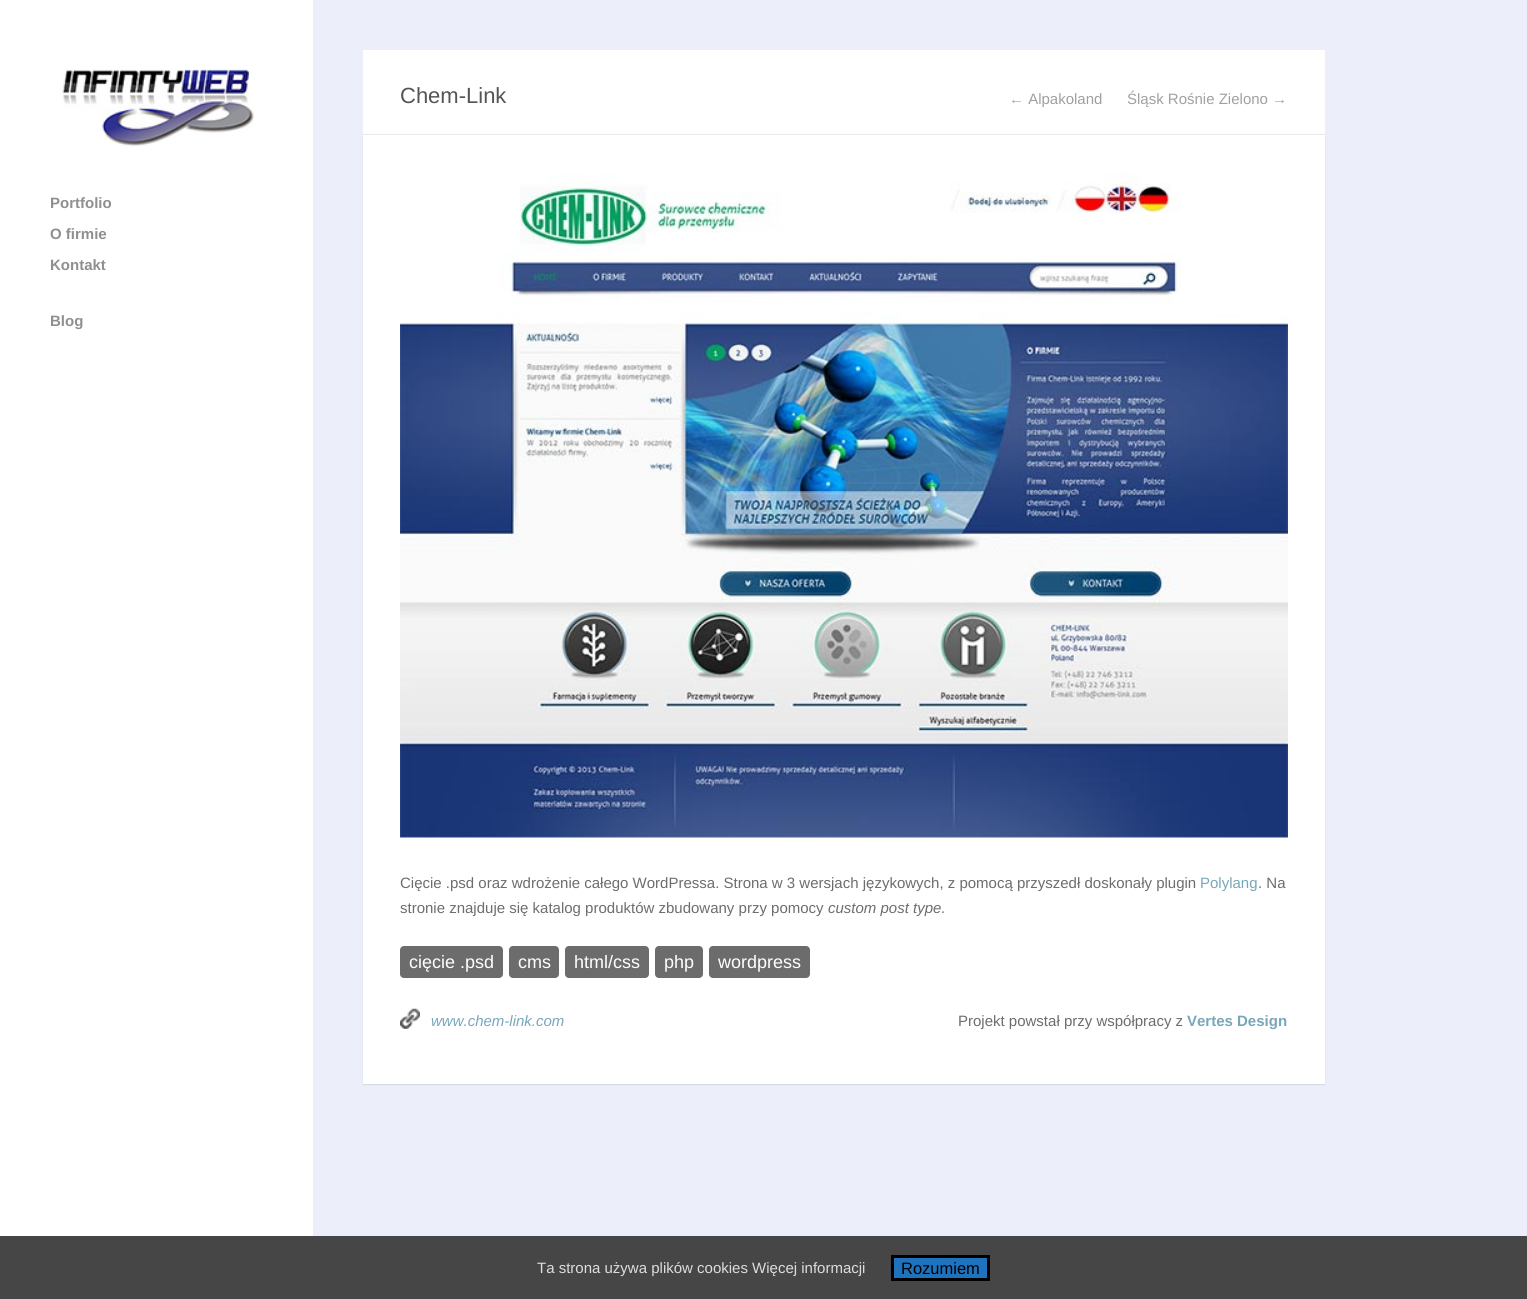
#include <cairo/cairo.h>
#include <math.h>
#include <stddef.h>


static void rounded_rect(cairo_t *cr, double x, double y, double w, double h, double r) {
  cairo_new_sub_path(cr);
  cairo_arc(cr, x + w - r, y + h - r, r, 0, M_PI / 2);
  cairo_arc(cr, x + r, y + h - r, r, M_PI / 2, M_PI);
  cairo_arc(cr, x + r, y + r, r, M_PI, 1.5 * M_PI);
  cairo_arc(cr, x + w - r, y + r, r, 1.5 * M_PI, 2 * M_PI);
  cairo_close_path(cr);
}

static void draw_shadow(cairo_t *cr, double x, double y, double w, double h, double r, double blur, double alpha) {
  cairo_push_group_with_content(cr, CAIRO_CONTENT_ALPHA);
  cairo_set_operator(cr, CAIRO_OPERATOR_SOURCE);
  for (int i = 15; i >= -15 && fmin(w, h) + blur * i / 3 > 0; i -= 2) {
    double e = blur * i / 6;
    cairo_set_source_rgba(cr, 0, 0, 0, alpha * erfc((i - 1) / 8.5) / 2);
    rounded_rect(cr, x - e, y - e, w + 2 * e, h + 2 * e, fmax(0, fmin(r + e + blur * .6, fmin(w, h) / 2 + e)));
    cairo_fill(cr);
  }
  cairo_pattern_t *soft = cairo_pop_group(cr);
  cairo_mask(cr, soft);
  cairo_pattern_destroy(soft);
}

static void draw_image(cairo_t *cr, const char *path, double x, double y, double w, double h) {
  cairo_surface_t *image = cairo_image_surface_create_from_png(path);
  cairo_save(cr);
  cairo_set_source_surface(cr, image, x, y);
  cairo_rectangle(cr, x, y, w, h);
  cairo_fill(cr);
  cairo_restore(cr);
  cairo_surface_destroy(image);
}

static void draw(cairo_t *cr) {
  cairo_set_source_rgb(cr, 236 / 255.0, 239 / 255.0, 249 / 255.0);
  cairo_paint(cr);
  cairo_set_source_rgb(cr, 1, 1, 1);
  cairo_rectangle(cr, 0, 0, 313, 1236);
  cairo_fill(cr);
  draw_image(cr, "images/1.png", 62, 69, 192, 78);
  cairo_rectangle(cr, 363, 50, 962, 84);
  cairo_fill(cr);
  cairo_set_source_rgb(cr, 235 / 255.0, 235 / 255.0, 235 / 255.0);
  cairo_rectangle(cr, 363, 134, 962, 1);
  cairo_fill(cr);
  cairo_set_source_rgb(cr, 0, 0, 0);
  draw_shadow(cr, 363, 136, 962, 949, 0, 0.5, 0.1);
  cairo_set_source_rgb(cr, 1, 1, 1);
  cairo_rectangle(cr, 363, 135, 962, 949);
  cairo_fill(cr);
  draw_image(cr, "images/2.png", 400, 173, 888, 665);
  cairo_set_source_rgb(cr, 108 / 255.0, 108 / 255.0, 108 / 255.0);
  rounded_rect(cr, 400, 946, 103, 32, 4);
  cairo_fill(cr);
  rounded_rect(cr, 509, 946, 50, 32, 4);
  cairo_fill(cr);
  rounded_rect(cr, 565, 946, 84, 32, 4);
  cairo_fill(cr);
  rounded_rect(cr, 655, 946, 48, 32, 4);
  cairo_fill(cr);
  rounded_rect(cr, 709, 946, 101, 32, 4);
  cairo_fill(cr);
  draw_image(cr, "images/3.png", 400, 1008, 20, 21);
  cairo_set_source_rgb(cr, 70 / 255.0, 70 / 255.0, 70 / 255.0);
  cairo_rectangle(cr, 0, 1236, 1527, 63);
  cairo_fill(cr);
  cairo_set_source_rgb(cr, 30 / 255.0, 115 / 255.0, 190 / 255.0);
  cairo_rectangle(cr, 892.5, 1256.5, 96, 23);
  cairo_fill_preserve(cr);
  cairo_set_source_rgb(cr, 0, 0, 0);
  cairo_set_line_width(cr, 3);
  cairo_stroke(cr);
  cairo_select_font_face(cr, "Liberation Sans", CAIRO_FONT_SLANT_NORMAL, CAIRO_FONT_WEIGHT_BOLD);
  cairo_set_font_size(cr, 15);
  cairo_set_source_rgb(cr, 143 / 255.0, 143 / 255.0, 143 / 255.0);
  cairo_move_to(cr, 50, 208);
  cairo_show_text(cr, "Portfolio");
  cairo_move_to(cr, 50, 239);
  cairo_show_text(cr, "O firmie");
  cairo_move_to(cr, 50, 270);
  cairo_show_text(cr, "Kontakt");
  cairo_move_to(cr, 50, 326);
  cairo_show_text(cr, "Blog");
  cairo_select_font_face(cr, "Liberation Sans", CAIRO_FONT_SLANT_NORMAL, CAIRO_FONT_WEIGHT_NORMAL);
  cairo_set_font_size(cr, 22);
  cairo_set_source_rgb(cr, 85 / 255.0, 85 / 255.0, 85 / 255.0);
  cairo_move_to(cr, 400, 103);
  cairo_show_text(cr, "Chem-Link");
  cairo_set_font_size(cr, 15);
  cairo_set_source_rgb(cr, 160 / 255.0, 160 / 255.0, 160 / 255.0);
  cairo_move_to(cr, 1009, 104);
  cairo_show_text(cr, "← Alpakoland");
  cairo_move_to(cr, 1127, 104);
  cairo_show_text(cr, "Śląsk Rośnie Zielono →");
  cairo_set_source_rgb(cr, 109 / 255.0, 109 / 255.0, 107 / 255.0);
  cairo_move_to(cr, 400, 888);
  cairo_show_text(cr, "Cięcie .psd oraz wdrożenie całego WordPressa. Strona w 3 wersjach językowych, z pomocą przyszedł doskonały plugin");
  cairo_set_source_rgb(cr, 119 / 255.0, 167 / 255.0, 185 / 255.0);
  cairo_move_to(cr, 1200, 888);
  cairo_show_text(cr, "Polylang");
  cairo_set_source_rgb(cr, 109 / 255.0, 109 / 255.0, 107 / 255.0);
  cairo_move_to(cr, 1258, 888);
  cairo_show_text(cr, ". Na");
  cairo_move_to(cr, 400, 913);
  cairo_show_text(cr, "stronie znajduje się katalog produktów zbudowany przy pomocy");
  cairo_select_font_face(cr, "Liberation Sans", CAIRO_FONT_SLANT_ITALIC, CAIRO_FONT_WEIGHT_NORMAL);
  cairo_move_to(cr, 828, 913);
  cairo_show_text(cr, "custom post type.");
  cairo_select_font_face(cr, "Liberation Sans", CAIRO_FONT_SLANT_NORMAL, CAIRO_FONT_WEIGHT_NORMAL);
  cairo_set_font_size(cr, 18);
  cairo_set_source_rgb(cr, 1, 1, 1);
  cairo_move_to(cr, 409, 968);
  cairo_show_text(cr, "cięcie .psd");
  cairo_move_to(cr, 518, 968);
  cairo_show_text(cr, "cms");
  cairo_move_to(cr, 574, 968);
  cairo_show_text(cr, "html/css");
  cairo_move_to(cr, 664, 968);
  cairo_show_text(cr, "php");
  cairo_move_to(cr, 718, 968);
  cairo_show_text(cr, "wordpress");
  cairo_select_font_face(cr, "Liberation Sans", CAIRO_FONT_SLANT_ITALIC, CAIRO_FONT_WEIGHT_NORMAL);
  cairo_set_font_size(cr, 15);
  cairo_set_source_rgb(cr, 119 / 255.0, 167 / 255.0, 185 / 255.0);
  cairo_move_to(cr, 431, 1026);
  cairo_show_text(cr, "www.chem-link.com");
  cairo_select_font_face(cr, "Liberation Sans", CAIRO_FONT_SLANT_NORMAL, CAIRO_FONT_WEIGHT_NORMAL);
  cairo_set_source_rgb(cr, 109 / 255.0, 109 / 255.0, 107 / 255.0);
  cairo_move_to(cr, 958, 1026);
  cairo_show_text(cr, "Projekt powstał przy współpracy z");
  cairo_select_font_face(cr, "Liberation Sans", CAIRO_FONT_SLANT_NORMAL, CAIRO_FONT_WEIGHT_BOLD);
  cairo_set_source_rgb(cr, 119 / 255.0, 167 / 255.0, 185 / 255.0);
  cairo_move_to(cr, 1187, 1026);
  cairo_show_text(cr, "Vertes Design");
  cairo_select_font_face(cr, "Liberation Sans", CAIRO_FONT_SLANT_NORMAL, CAIRO_FONT_WEIGHT_NORMAL);
  cairo_set_source_rgb(cr, 221 / 255.0, 221 / 255.0, 221 / 255.0);
  cairo_move_to(cr, 537, 1273);
  cairo_show_text(cr, "Ta strona używa plików cookies Więcej informacji");
  cairo_set_font_size(cr, 16.5);
  cairo_set_source_rgb(cr, 0, 0, 0);
  cairo_move_to(cr, 901, 1274);
  cairo_show_text(cr, "Rozumiem");
}

int main(void) {
  cairo_surface_t *surface = cairo_image_surface_create(CAIRO_FORMAT_RGB24, 1527, 1299);
  cairo_t *cr = cairo_create(surface);
  cairo_font_options_t *options = cairo_font_options_create();
  cairo_font_options_set_hint_metrics(options, CAIRO_HINT_METRICS_OFF);
  cairo_font_options_set_hint_style(options, CAIRO_HINT_STYLE_NONE);
  cairo_set_font_options(cr, options);
  cairo_set_miter_limit(cr, 4);
  draw(cr);
  cairo_surface_write_to_png(surface, "out.png");
  cairo_font_options_destroy(options);
  cairo_destroy(cr);
  cairo_surface_destroy(surface);
  return 0;
}
